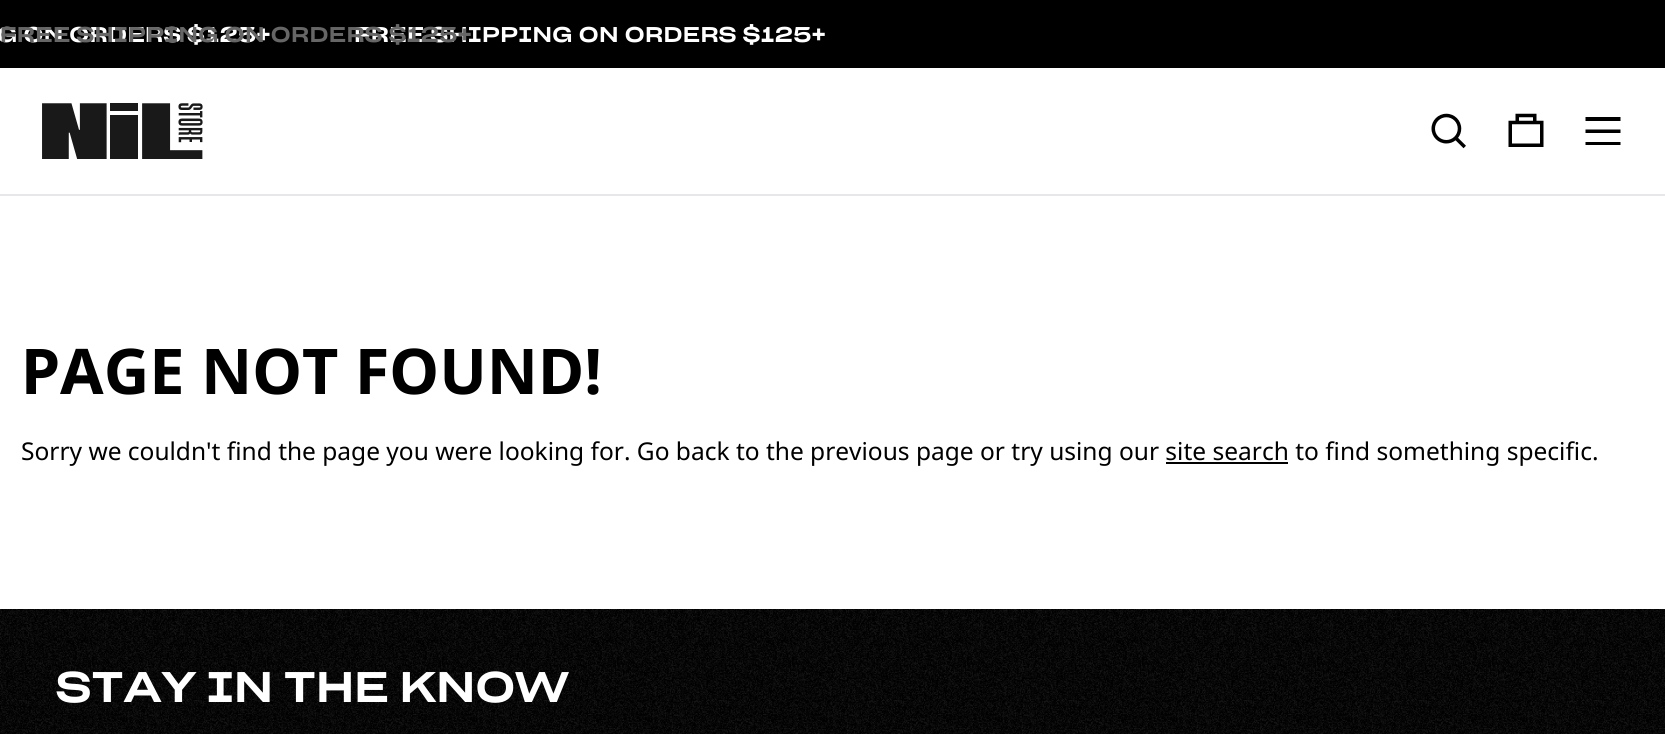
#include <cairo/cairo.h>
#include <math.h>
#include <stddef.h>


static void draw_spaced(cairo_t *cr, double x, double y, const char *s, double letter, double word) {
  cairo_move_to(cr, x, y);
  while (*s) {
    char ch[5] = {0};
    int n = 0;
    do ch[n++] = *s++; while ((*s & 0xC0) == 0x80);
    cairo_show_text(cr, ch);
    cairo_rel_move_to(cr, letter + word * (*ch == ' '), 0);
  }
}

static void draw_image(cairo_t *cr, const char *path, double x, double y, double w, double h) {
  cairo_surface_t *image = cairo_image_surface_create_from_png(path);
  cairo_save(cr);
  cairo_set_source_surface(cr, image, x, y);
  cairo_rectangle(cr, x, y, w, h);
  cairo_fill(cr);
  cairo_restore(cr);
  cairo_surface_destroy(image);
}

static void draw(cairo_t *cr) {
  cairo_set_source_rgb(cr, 1, 1, 1);
  cairo_paint(cr);
  cairo_set_source_rgb(cr, 0, 0, 0);
  cairo_rectangle(cr, 0, 0, 1665, 68);
  cairo_fill(cr);
  cairo_set_source_rgb(cr, 229 / 255.0, 231 / 255.0, 235 / 255.0);
  cairo_rectangle(cr, 0, 194, 1665, 2);
  cairo_fill(cr);
  draw_image(cr, "images/1.png", 42, 103, 161, 56);
  draw_image(cr, "images/2.png", 1431, 113, 35, 36);
  draw_image(cr, "images/3.png", 1508, 113, 36, 34);
  cairo_set_source_rgb(cr, 0, 0, 0);
  cairo_set_fill_rule(cr, CAIRO_FILL_RULE_EVEN_ODD);
  cairo_new_path(cr);
  cairo_move_to(cr, 1585.5, 117);
  cairo_line_to(cr, 1620.5, 117);
  cairo_line_to(cr, 1620.5, 121);
  cairo_line_to(cr, 1585.5, 121);
  cairo_close_path(cr);
  cairo_move_to(cr, 1585.5, 129.5);
  cairo_line_to(cr, 1620.5, 129.5);
  cairo_line_to(cr, 1620.5, 133);
  cairo_line_to(cr, 1585.5, 133);
  cairo_close_path(cr);
  cairo_move_to(cr, 1620.5, 142);
  cairo_line_to(cr, 1585.5, 142);
  cairo_line_to(cr, 1585.5, 145);
  cairo_line_to(cr, 1620.5, 145);
  cairo_close_path(cr);
  cairo_fill(cr);
  cairo_rectangle(cr, 1166, 462, 122, 2);
  cairo_fill(cr);
  cairo_rectangle(cr, 0, 609, 1665, 125);
  cairo_fill(cr);
  draw_image(cr, "images/4.png", 0, 609, 1665, 125);
  cairo_select_font_face(cr, "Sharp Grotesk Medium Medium", CAIRO_FONT_SLANT_NORMAL, CAIRO_FONT_WEIGHT_NORMAL);
  cairo_set_font_size(cr, 21);
  cairo_set_source_rgb(cr, 1, 1, 1);
  draw_spaced(cr, -3, 42, "G ON ORDERS $125+", 0.45, 0);
  draw_spaced(cr, 354, 42, "FREE SHIPPING ON ORDERS $125+", 0.45, 0);
  cairo_set_source_rgb(cr, 102 / 255.0, 102 / 255.0, 102 / 255.0);
  draw_spaced(cr, 0, 42, "FREE SHIPPING ON ORDERS $125+", 0.45, 0);
  cairo_select_font_face(cr, "Noto Sans", CAIRO_FONT_SLANT_NORMAL, CAIRO_FONT_WEIGHT_BOLD);
  cairo_set_font_size(cr, 63);
  cairo_set_source_rgb(cr, 0, 0, 0);
  cairo_move_to(cr, 21, 394);
  cairo_show_text(cr, "PAGE NOT FOUND!");
  cairo_select_font_face(cr, "Noto Sans", CAIRO_FONT_SLANT_NORMAL, CAIRO_FONT_WEIGHT_NORMAL);
  cairo_set_font_size(cr, 24.5);
  cairo_move_to(cr, 21, 460);
  cairo_show_text(cr, "Sorry we couldn't find the page you were looking for. Go back to the previous page or try using our site search to find something specific.");
  cairo_select_font_face(cr, "Sharp Grotesk Medium Medium", CAIRO_FONT_SLANT_NORMAL, CAIRO_FONT_WEIGHT_NORMAL);
  cairo_set_font_size(cr, 42);
  cairo_set_source_rgb(cr, 1, 1, 1);
  draw_spaced(cr, 56, 702, "STAY IN THE KNOW", 0.1, 0);
}

int main(void) {
  cairo_surface_t *surface = cairo_image_surface_create(CAIRO_FORMAT_RGB24, 1665, 734);
  cairo_t *cr = cairo_create(surface);
  cairo_font_options_t *options = cairo_font_options_create();
  cairo_font_options_set_hint_metrics(options, CAIRO_HINT_METRICS_OFF);
  cairo_font_options_set_hint_style(options, CAIRO_HINT_STYLE_NONE);
  cairo_set_font_options(cr, options);
  cairo_set_miter_limit(cr, 4);
  draw(cr);
  cairo_surface_write_to_png(surface, "out.png");
  cairo_font_options_destroy(options);
  cairo_destroy(cr);
  cairo_surface_destroy(surface);
  return 0;
}
